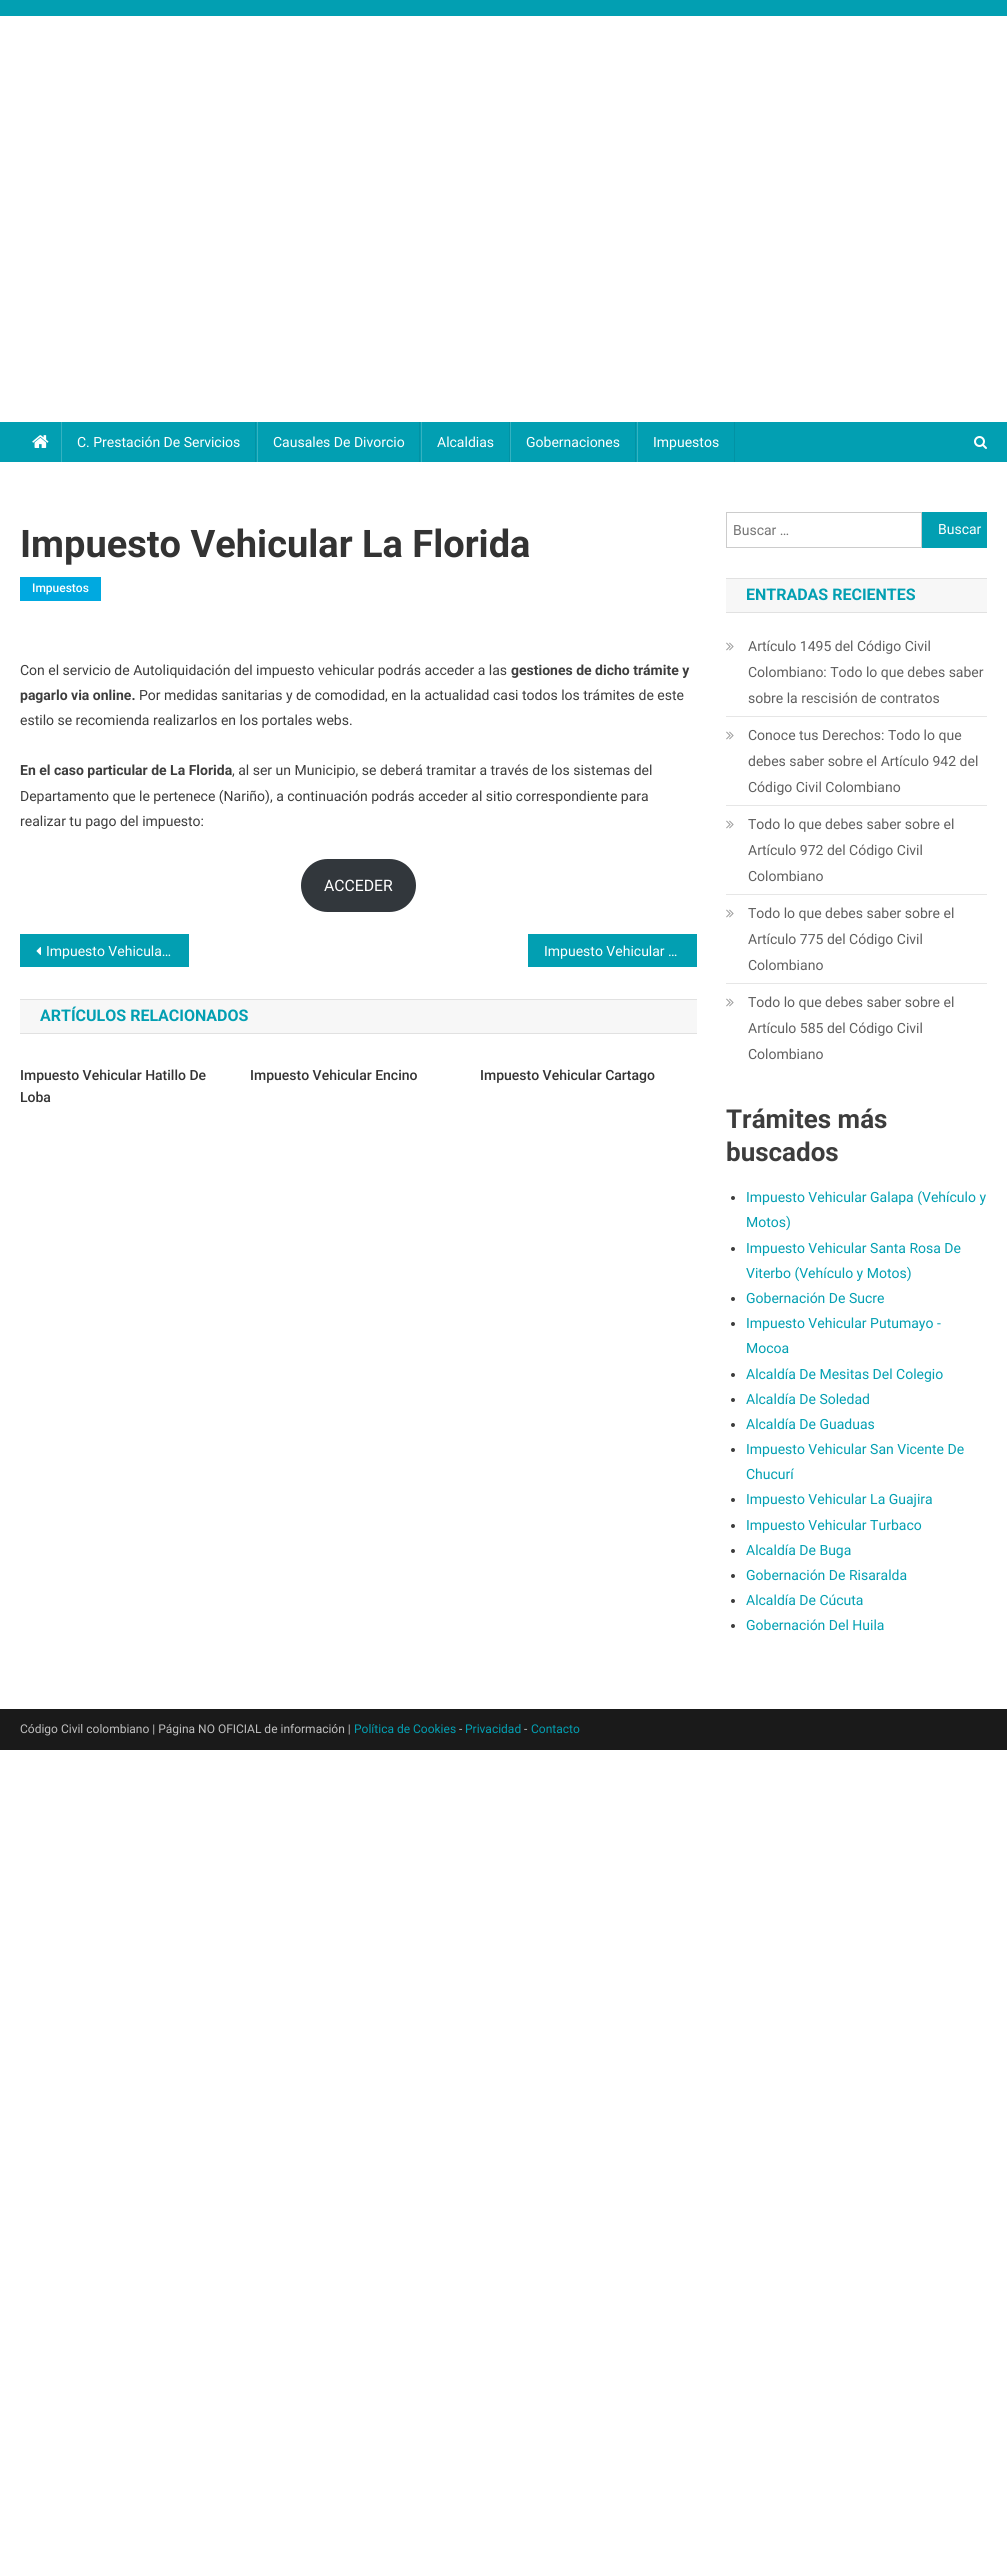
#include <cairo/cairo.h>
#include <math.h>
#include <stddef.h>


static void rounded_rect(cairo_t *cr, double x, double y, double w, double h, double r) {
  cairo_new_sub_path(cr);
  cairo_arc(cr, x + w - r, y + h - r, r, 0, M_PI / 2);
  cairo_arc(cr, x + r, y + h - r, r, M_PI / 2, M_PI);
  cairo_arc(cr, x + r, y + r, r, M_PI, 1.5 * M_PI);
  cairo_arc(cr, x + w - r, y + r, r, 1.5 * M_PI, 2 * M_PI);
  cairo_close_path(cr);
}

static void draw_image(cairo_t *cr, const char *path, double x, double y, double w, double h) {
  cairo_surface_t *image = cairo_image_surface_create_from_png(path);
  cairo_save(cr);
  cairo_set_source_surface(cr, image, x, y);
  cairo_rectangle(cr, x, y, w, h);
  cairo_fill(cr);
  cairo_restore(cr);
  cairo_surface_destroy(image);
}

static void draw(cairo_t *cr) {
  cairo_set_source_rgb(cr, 1, 1, 1);
  cairo_paint(cr);
  cairo_set_source_rgb(cr, 2 / 255.0, 159 / 255.0, 178 / 255.0);
  cairo_rectangle(cr, 0, 0, 1007, 16);
  cairo_fill(cr);
  cairo_rectangle(cr, 0, 422, 1007, 40);
  cairo_fill(cr);
  draw_image(cr, "images/1.png", 32, 435, 17, 13);
  cairo_set_source_rgb(cr, 2 / 255.0, 146 / 255.0, 164 / 255.0);
  cairo_rectangle(cr, 255, 422, 1, 40);
  cairo_fill(cr);
  cairo_set_source_rgb(cr, 53 / 255.0, 178 / 255.0, 193 / 255.0);
  cairo_rectangle(cr, 61, 422, 1, 40);
  cairo_fill(cr);
  cairo_set_source_rgb(cr, 2 / 255.0, 146 / 255.0, 164 / 255.0);
  cairo_rectangle(cr, 419, 422, 1, 40);
  cairo_fill(cr);
  cairo_set_source_rgb(cr, 53 / 255.0, 178 / 255.0, 193 / 255.0);
  cairo_rectangle(cr, 257, 422, 1, 40);
  cairo_fill(cr);
  cairo_set_source_rgb(cr, 2 / 255.0, 146 / 255.0, 164 / 255.0);
  cairo_rectangle(cr, 509, 422, 1, 40);
  cairo_fill(cr);
  cairo_set_source_rgb(cr, 53 / 255.0, 178 / 255.0, 193 / 255.0);
  cairo_rectangle(cr, 421, 422, 1, 40);
  cairo_fill(cr);
  cairo_set_source_rgb(cr, 2 / 255.0, 146 / 255.0, 164 / 255.0);
  cairo_rectangle(cr, 635, 422, 1, 40);
  cairo_fill(cr);
  cairo_set_source_rgb(cr, 53 / 255.0, 178 / 255.0, 193 / 255.0);
  cairo_rectangle(cr, 510, 422, 1, 40);
  cairo_fill(cr);
  cairo_set_source_rgb(cr, 2 / 255.0, 146 / 255.0, 164 / 255.0);
  cairo_rectangle(cr, 734, 422, 1, 40);
  cairo_fill(cr);
  cairo_set_source_rgb(cr, 53 / 255.0, 178 / 255.0, 193 / 255.0);
  cairo_rectangle(cr, 637, 422, 1, 40);
  cairo_fill(cr);
  draw_image(cr, "images/2.png", 974, 436, 13, 13);
  cairo_set_source_rgb(cr, 0, 169 / 255.0, 224 / 255.0);
  cairo_rectangle(cr, 20, 577, 81, 24);
  cairo_fill(cr);
  cairo_set_source_rgb(cr, 50 / 255.0, 55 / 255.0, 60 / 255.0);
  rounded_rect(cr, 301, 859, 115, 53, 26.5);
  cairo_fill(cr);
  cairo_set_source_rgb(cr, 2 / 255.0, 159 / 255.0, 178 / 255.0);
  cairo_rectangle(cr, 20, 934, 169, 33);
  cairo_fill(cr);
  draw_image(cr, "images/3.png", 36, 947, 5, 8);
  cairo_rectangle(cr, 528, 934, 169, 33);
  cairo_fill(cr);
  cairo_set_source_rgb(cr, 247 / 255.0, 247 / 255.0, 247 / 255.0);
  cairo_rectangle(cr, 20, 1000, 677, 33);
  cairo_fill(cr);
  cairo_set_source_rgb(cr, 225 / 255.0, 225 / 255.0, 225 / 255.0);
  cairo_rectangle(cr, 20, 999, 677, 1);
  cairo_fill(cr);
  cairo_rectangle(cr, 20, 1033, 677, 1);
  cairo_fill(cr);
  cairo_rectangle(cr, 726.5, 512.5, 195, 35);
  cairo_set_source_rgb(cr, 204 / 255.0, 204 / 255.0, 204 / 255.0);
  cairo_set_line_width(cr, 1);
  cairo_stroke(cr);
  cairo_set_source_rgb(cr, 2 / 255.0, 159 / 255.0, 178 / 255.0);
  cairo_rectangle(cr, 922, 512, 65, 36);
  cairo_fill(cr);
  cairo_set_source_rgb(cr, 247 / 255.0, 247 / 255.0, 247 / 255.0);
  cairo_rectangle(cr, 726, 579, 261, 33);
  cairo_fill(cr);
  cairo_set_source_rgb(cr, 225 / 255.0, 225 / 255.0, 225 / 255.0);
  cairo_rectangle(cr, 726, 578, 261, 1);
  cairo_fill(cr);
  cairo_rectangle(cr, 726, 612, 261, 1);
  cairo_fill(cr);
  cairo_set_source_rgb(cr, 230 / 255.0, 230 / 255.0, 230 / 255.0);
  cairo_rectangle(cr, 726, 716, 261, 1);
  cairo_fill(cr);
  draw_image(cr, "images/4.png", 726, 642, 8, 9);
  cairo_rectangle(cr, 726, 805, 261, 1);
  cairo_fill(cr);
  draw_image(cr, "images/4.png", 726, 731, 8, 9);
  cairo_rectangle(cr, 726, 894, 261, 1);
  cairo_fill(cr);
  draw_image(cr, "images/4.png", 726, 820, 8, 9);
  cairo_rectangle(cr, 726, 983, 261, 1);
  cairo_fill(cr);
  draw_image(cr, "images/4.png", 726, 909, 8, 9);
  draw_image(cr, "images/4.png", 726, 998, 8, 9);
  cairo_set_source_rgb(cr, 61 / 255.0, 61 / 255.0, 61 / 255.0);
  cairo_arc(cr, 733, 1198, 2, 0, 2 * M_PI);
  cairo_fill(cr);
  cairo_arc(cr, 733, 1249, 2, 0, 2 * M_PI);
  cairo_fill(cr);
  cairo_arc(cr, 733, 1299, 2, 0, 2 * M_PI);
  cairo_fill(cr);
  cairo_arc(cr, 733, 1324, 2, 0, 2 * M_PI);
  cairo_fill(cr);
  cairo_arc(cr, 733, 1375, 2, 0, 2 * M_PI);
  cairo_fill(cr);
  cairo_arc(cr, 733, 1400, 2, 0, 2 * M_PI);
  cairo_fill(cr);
  cairo_arc(cr, 733, 1425, 2, 0, 2 * M_PI);
  cairo_fill(cr);
  cairo_arc(cr, 733, 1450, 2, 0, 2 * M_PI);
  cairo_fill(cr);
  cairo_arc(cr, 733, 1500, 2, 0, 2 * M_PI);
  cairo_fill(cr);
  cairo_arc(cr, 733, 1526, 2, 0, 2 * M_PI);
  cairo_fill(cr);
  cairo_arc(cr, 733, 1551, 2, 0, 2 * M_PI);
  cairo_fill(cr);
  cairo_arc(cr, 733, 1576, 2, 0, 2 * M_PI);
  cairo_fill(cr);
  cairo_arc(cr, 733, 1601, 2, 0, 2 * M_PI);
  cairo_fill(cr);
  cairo_arc(cr, 733, 1626, 2, 0, 2 * M_PI);
  cairo_fill(cr);
  cairo_set_source_rgb(cr, 26 / 255.0, 26 / 255.0, 26 / 255.0);
  cairo_rectangle(cr, 0, 1709, 1007, 41);
  cairo_fill(cr);
  cairo_select_font_face(cr, "Roboto", CAIRO_FONT_SLANT_NORMAL, CAIRO_FONT_WEIGHT_NORMAL);
  cairo_set_font_size(cr, 14);
  cairo_set_source_rgb(cr, 1, 1, 1);
  cairo_move_to(cr, 77, 447);
  cairo_show_text(cr, "C. Prestación De Servicios");
  cairo_move_to(cr, 273, 447);
  cairo_show_text(cr, "Causales De Divorcio");
  cairo_move_to(cr, 437, 447);
  cairo_show_text(cr, "Alcaldias");
  cairo_move_to(cr, 526, 447);
  cairo_show_text(cr, "Gobernaciones");
  cairo_move_to(cr, 653, 447);
  cairo_show_text(cr, "Impuestos");
  cairo_select_font_face(cr, "Roboto", CAIRO_FONT_SLANT_NORMAL, CAIRO_FONT_WEIGHT_BOLD);
  cairo_set_font_size(cr, 38);
  cairo_set_source_rgb(cr, 51 / 255.0, 51 / 255.0, 51 / 255.0);
  cairo_move_to(cr, 20, 557);
  cairo_show_text(cr, "Impuesto Vehicular La Florida");
  cairo_select_font_face(cr, "Roboto Medium", CAIRO_FONT_SLANT_NORMAL, CAIRO_FONT_WEIGHT_NORMAL);
  cairo_set_font_size(cr, 12);
  cairo_set_source_rgb(cr, 1, 1, 1);
  cairo_move_to(cr, 32, 592);
  cairo_show_text(cr, "Impuestos");
  cairo_select_font_face(cr, "Roboto", CAIRO_FONT_SLANT_NORMAL, CAIRO_FONT_WEIGHT_NORMAL);
  cairo_set_font_size(cr, 14);
  cairo_set_source_rgb(cr, 61 / 255.0, 61 / 255.0, 61 / 255.0);
  cairo_move_to(cr, 20, 675);
  cairo_show_text(cr, "Con el servicio de Autoliquidación del impuesto vehicular podrás acceder a las");
  cairo_select_font_face(cr, "Roboto", CAIRO_FONT_SLANT_NORMAL, CAIRO_FONT_WEIGHT_BOLD);
  cairo_move_to(cr, 511, 675);
  cairo_show_text(cr, "gestiones de dicho trámite y");
  cairo_move_to(cr, 20, 700);
  cairo_show_text(cr, "pagarlo via online.");
  cairo_select_font_face(cr, "Roboto", CAIRO_FONT_SLANT_NORMAL, CAIRO_FONT_WEIGHT_NORMAL);
  cairo_move_to(cr, 139, 700);
  cairo_show_text(cr, "Por medidas sanitarias y de comodidad, en la actualidad casi todos los trámites de este");
  cairo_move_to(cr, 20, 725);
  cairo_show_text(cr, "estilo se recomienda realizarlos en los portales webs.");
  cairo_select_font_face(cr, "Roboto", CAIRO_FONT_SLANT_NORMAL, CAIRO_FONT_WEIGHT_BOLD);
  cairo_move_to(cr, 20, 775);
  cairo_show_text(cr, "En el caso particular de La Florida");
  cairo_select_font_face(cr, "Roboto", CAIRO_FONT_SLANT_NORMAL, CAIRO_FONT_WEIGHT_NORMAL);
  cairo_move_to(cr, 232, 775);
  cairo_show_text(cr, ", al ser un Municipio, se deberá tramitar a través de los sistemas del");
  cairo_move_to(cr, 20, 801);
  cairo_show_text(cr, "Departamento que le pertenece (Nariño), a continuación podrás acceder al sitio correspondiente para");
  cairo_move_to(cr, 20, 826);
  cairo_show_text(cr, "realizar tu pago del impuesto:");
  cairo_set_font_size(cr, 15.75);
  cairo_set_source_rgb(cr, 1, 1, 1);
  cairo_move_to(cr, 324, 891);
  cairo_show_text(cr, "ACCEDER");
  cairo_set_font_size(cr, 14);
  cairo_move_to(cr, 46, 956);
  cairo_show_text(cr, "Impuesto Vehicula…");
  cairo_move_to(cr, 544, 956);
  cairo_show_text(cr, "Impuesto Vehicular …");
  cairo_select_font_face(cr, "Roboto", CAIRO_FONT_SLANT_NORMAL, CAIRO_FONT_WEIGHT_BOLD);
  cairo_set_font_size(cr, 16);
  cairo_set_source_rgb(cr, 2 / 255.0, 159 / 255.0, 178 / 255.0);
  cairo_move_to(cr, 40, 1021);
  cairo_show_text(cr, "ARTÍCULOS RELACIONADOS");
  cairo_select_font_face(cr, "Roboto Medium", CAIRO_FONT_SLANT_NORMAL, CAIRO_FONT_WEIGHT_NORMAL);
  cairo_set_font_size(cr, 14);
  cairo_set_source_rgb(cr, 51 / 255.0, 51 / 255.0, 51 / 255.0);
  cairo_move_to(cr, 20, 1080);
  cairo_show_text(cr, "Impuesto Vehicular Hatillo De");
  cairo_move_to(cr, 20, 1102);
  cairo_show_text(cr, "Loba");
  cairo_move_to(cr, 250, 1080);
  cairo_show_text(cr, "Impuesto Vehicular Encino");
  cairo_move_to(cr, 480, 1080);
  cairo_show_text(cr, "Impuesto Vehicular Cartago");
  cairo_select_font_face(cr, "Roboto", CAIRO_FONT_SLANT_NORMAL, CAIRO_FONT_WEIGHT_NORMAL);
  cairo_set_source_rgb(cr, 117 / 255.0, 117 / 255.0, 117 / 255.0);
  cairo_move_to(cr, 733, 535);
  cairo_show_text(cr, "Buscar …");
  cairo_set_source_rgb(cr, 1, 1, 1);
  cairo_move_to(cr, 938, 534);
  cairo_show_text(cr, "Buscar");
  cairo_select_font_face(cr, "Roboto", CAIRO_FONT_SLANT_NORMAL, CAIRO_FONT_WEIGHT_BOLD);
  cairo_set_font_size(cr, 16);
  cairo_set_source_rgb(cr, 2 / 255.0, 159 / 255.0, 178 / 255.0);
  cairo_move_to(cr, 746, 600);
  cairo_show_text(cr, "ENTRADAS RECIENTES");
  cairo_select_font_face(cr, "Roboto", CAIRO_FONT_SLANT_NORMAL, CAIRO_FONT_WEIGHT_NORMAL);
  cairo_set_font_size(cr, 14);
  cairo_set_source_rgb(cr, 95 / 255.0, 95 / 255.0, 95 / 255.0);
  cairo_move_to(cr, 748, 651);
  cairo_show_text(cr, "Artículo 1495 del Código Civil");
  cairo_move_to(cr, 748, 677);
  cairo_show_text(cr, "Colombiano: Todo lo que debes saber");
  cairo_move_to(cr, 748, 703);
  cairo_show_text(cr, "sobre la rescisión de contratos");
  cairo_move_to(cr, 748, 740);
  cairo_show_text(cr, "Conoce tus Derechos: Todo lo que");
  cairo_move_to(cr, 748, 766);
  cairo_show_text(cr, "debes saber sobre el Artículo 942 del");
  cairo_move_to(cr, 748, 792);
  cairo_show_text(cr, "Código Civil Colombiano");
  cairo_move_to(cr, 748, 829);
  cairo_show_text(cr, "Todo lo que debes saber sobre el");
  cairo_move_to(cr, 748, 855);
  cairo_show_text(cr, "Artículo 972 del Código Civil");
  cairo_move_to(cr, 748, 881);
  cairo_show_text(cr, "Colombiano");
  cairo_move_to(cr, 748, 918);
  cairo_show_text(cr, "Todo lo que debes saber sobre el");
  cairo_move_to(cr, 748, 944);
  cairo_show_text(cr, "Artículo 775 del Código Civil");
  cairo_move_to(cr, 748, 970);
  cairo_show_text(cr, "Colombiano");
  cairo_move_to(cr, 748, 1007);
  cairo_show_text(cr, "Todo lo que debes saber sobre el");
  cairo_move_to(cr, 748, 1033);
  cairo_show_text(cr, "Artículo 585 del Código Civil");
  cairo_move_to(cr, 748, 1059);
  cairo_show_text(cr, "Colombiano");
  cairo_select_font_face(cr, "Roboto", CAIRO_FONT_SLANT_NORMAL, CAIRO_FONT_WEIGHT_BOLD);
  cairo_set_font_size(cr, 26);
  cairo_set_source_rgb(cr, 61 / 255.0, 61 / 255.0, 61 / 255.0);
  cairo_move_to(cr, 726, 1128);
  cairo_show_text(cr, "Trámites más");
  cairo_move_to(cr, 726, 1161);
  cairo_show_text(cr, "buscados");
  cairo_select_font_face(cr, "Roboto", CAIRO_FONT_SLANT_NORMAL, CAIRO_FONT_WEIGHT_NORMAL);
  cairo_set_font_size(cr, 14);
  cairo_set_source_rgb(cr, 2 / 255.0, 159 / 255.0, 178 / 255.0);
  cairo_move_to(cr, 746, 1202);
  cairo_show_text(cr, "Impuesto Vehicular Galapa (Vehículo y");
  cairo_move_to(cr, 746, 1227);
  cairo_show_text(cr, "Motos)");
  cairo_move_to(cr, 746, 1253);
  cairo_show_text(cr, "Impuesto Vehicular Santa Rosa De");
  cairo_move_to(cr, 746, 1278);
  cairo_show_text(cr, "Viterbo (Vehículo y Motos)");
  cairo_move_to(cr, 746, 1303);
  cairo_show_text(cr, "Gobernación De Sucre");
  cairo_move_to(cr, 746, 1328);
  cairo_show_text(cr, "Impuesto Vehicular Putumayo -");
  cairo_move_to(cr, 746, 1353);
  cairo_show_text(cr, "Mocoa");
  cairo_move_to(cr, 746, 1379);
  cairo_show_text(cr, "Alcaldía De Mesitas Del Colegio");
  cairo_move_to(cr, 746, 1404);
  cairo_show_text(cr, "Alcaldía De Soledad");
  cairo_move_to(cr, 746, 1429);
  cairo_show_text(cr, "Alcaldía De Guaduas");
  cairo_move_to(cr, 746, 1454);
  cairo_show_text(cr, "Impuesto Vehicular San Vicente De");
  cairo_move_to(cr, 746, 1479);
  cairo_show_text(cr, "Chucurí");
  cairo_move_to(cr, 746, 1504);
  cairo_show_text(cr, "Impuesto Vehicular La Guajira");
  cairo_move_to(cr, 746, 1530);
  cairo_show_text(cr, "Impuesto Vehicular Turbaco");
  cairo_move_to(cr, 746, 1555);
  cairo_show_text(cr, "Alcaldía De Buga");
  cairo_move_to(cr, 746, 1580);
  cairo_show_text(cr, "Gobernación De Risaralda");
  cairo_move_to(cr, 746, 1605);
  cairo_show_text(cr, "Alcaldía De Cúcuta");
  cairo_move_to(cr, 746, 1630);
  cairo_show_text(cr, "Gobernación Del Huila");
  cairo_set_font_size(cr, 12);
  cairo_set_source_rgb(cr, 191 / 255.0, 191 / 255.0, 191 / 255.0);
  cairo_move_to(cr, 20, 1733);
  cairo_show_text(cr, "Código Civil colombiano | Página NO OFICIAL de información |");
  cairo_set_source_rgb(cr, 2 / 255.0, 159 / 255.0, 178 / 255.0);
  cairo_move_to(cr, 354, 1733);
  cairo_show_text(cr, "Política de Cookies");
  cairo_set_source_rgb(cr, 191 / 255.0, 191 / 255.0, 191 / 255.0);
  cairo_move_to(cr, 459, 1733);
  cairo_show_text(cr, "-");
  cairo_set_source_rgb(cr, 2 / 255.0, 159 / 255.0, 178 / 255.0);
  cairo_move_to(cr, 465, 1733);
  cairo_show_text(cr, "Privacidad");
  cairo_set_source_rgb(cr, 191 / 255.0, 191 / 255.0, 191 / 255.0);
  cairo_move_to(cr, 524, 1733);
  cairo_show_text(cr, "-");
  cairo_set_source_rgb(cr, 2 / 255.0, 159 / 255.0, 178 / 255.0);
  cairo_move_to(cr, 531, 1733);
  cairo_show_text(cr, "Contacto");
}

int main(void) {
  cairo_surface_t *surface = cairo_image_surface_create(CAIRO_FORMAT_RGB24, 1007, 2570);
  cairo_t *cr = cairo_create(surface);
  cairo_font_options_t *options = cairo_font_options_create();
  cairo_font_options_set_hint_metrics(options, CAIRO_HINT_METRICS_OFF);
  cairo_font_options_set_hint_style(options, CAIRO_HINT_STYLE_NONE);
  cairo_set_font_options(cr, options);
  cairo_set_miter_limit(cr, 4);
  draw(cr);
  cairo_surface_write_to_png(surface, "out.png");
  cairo_font_options_destroy(options);
  cairo_destroy(cr);
  cairo_surface_destroy(surface);
  return 0;
}
